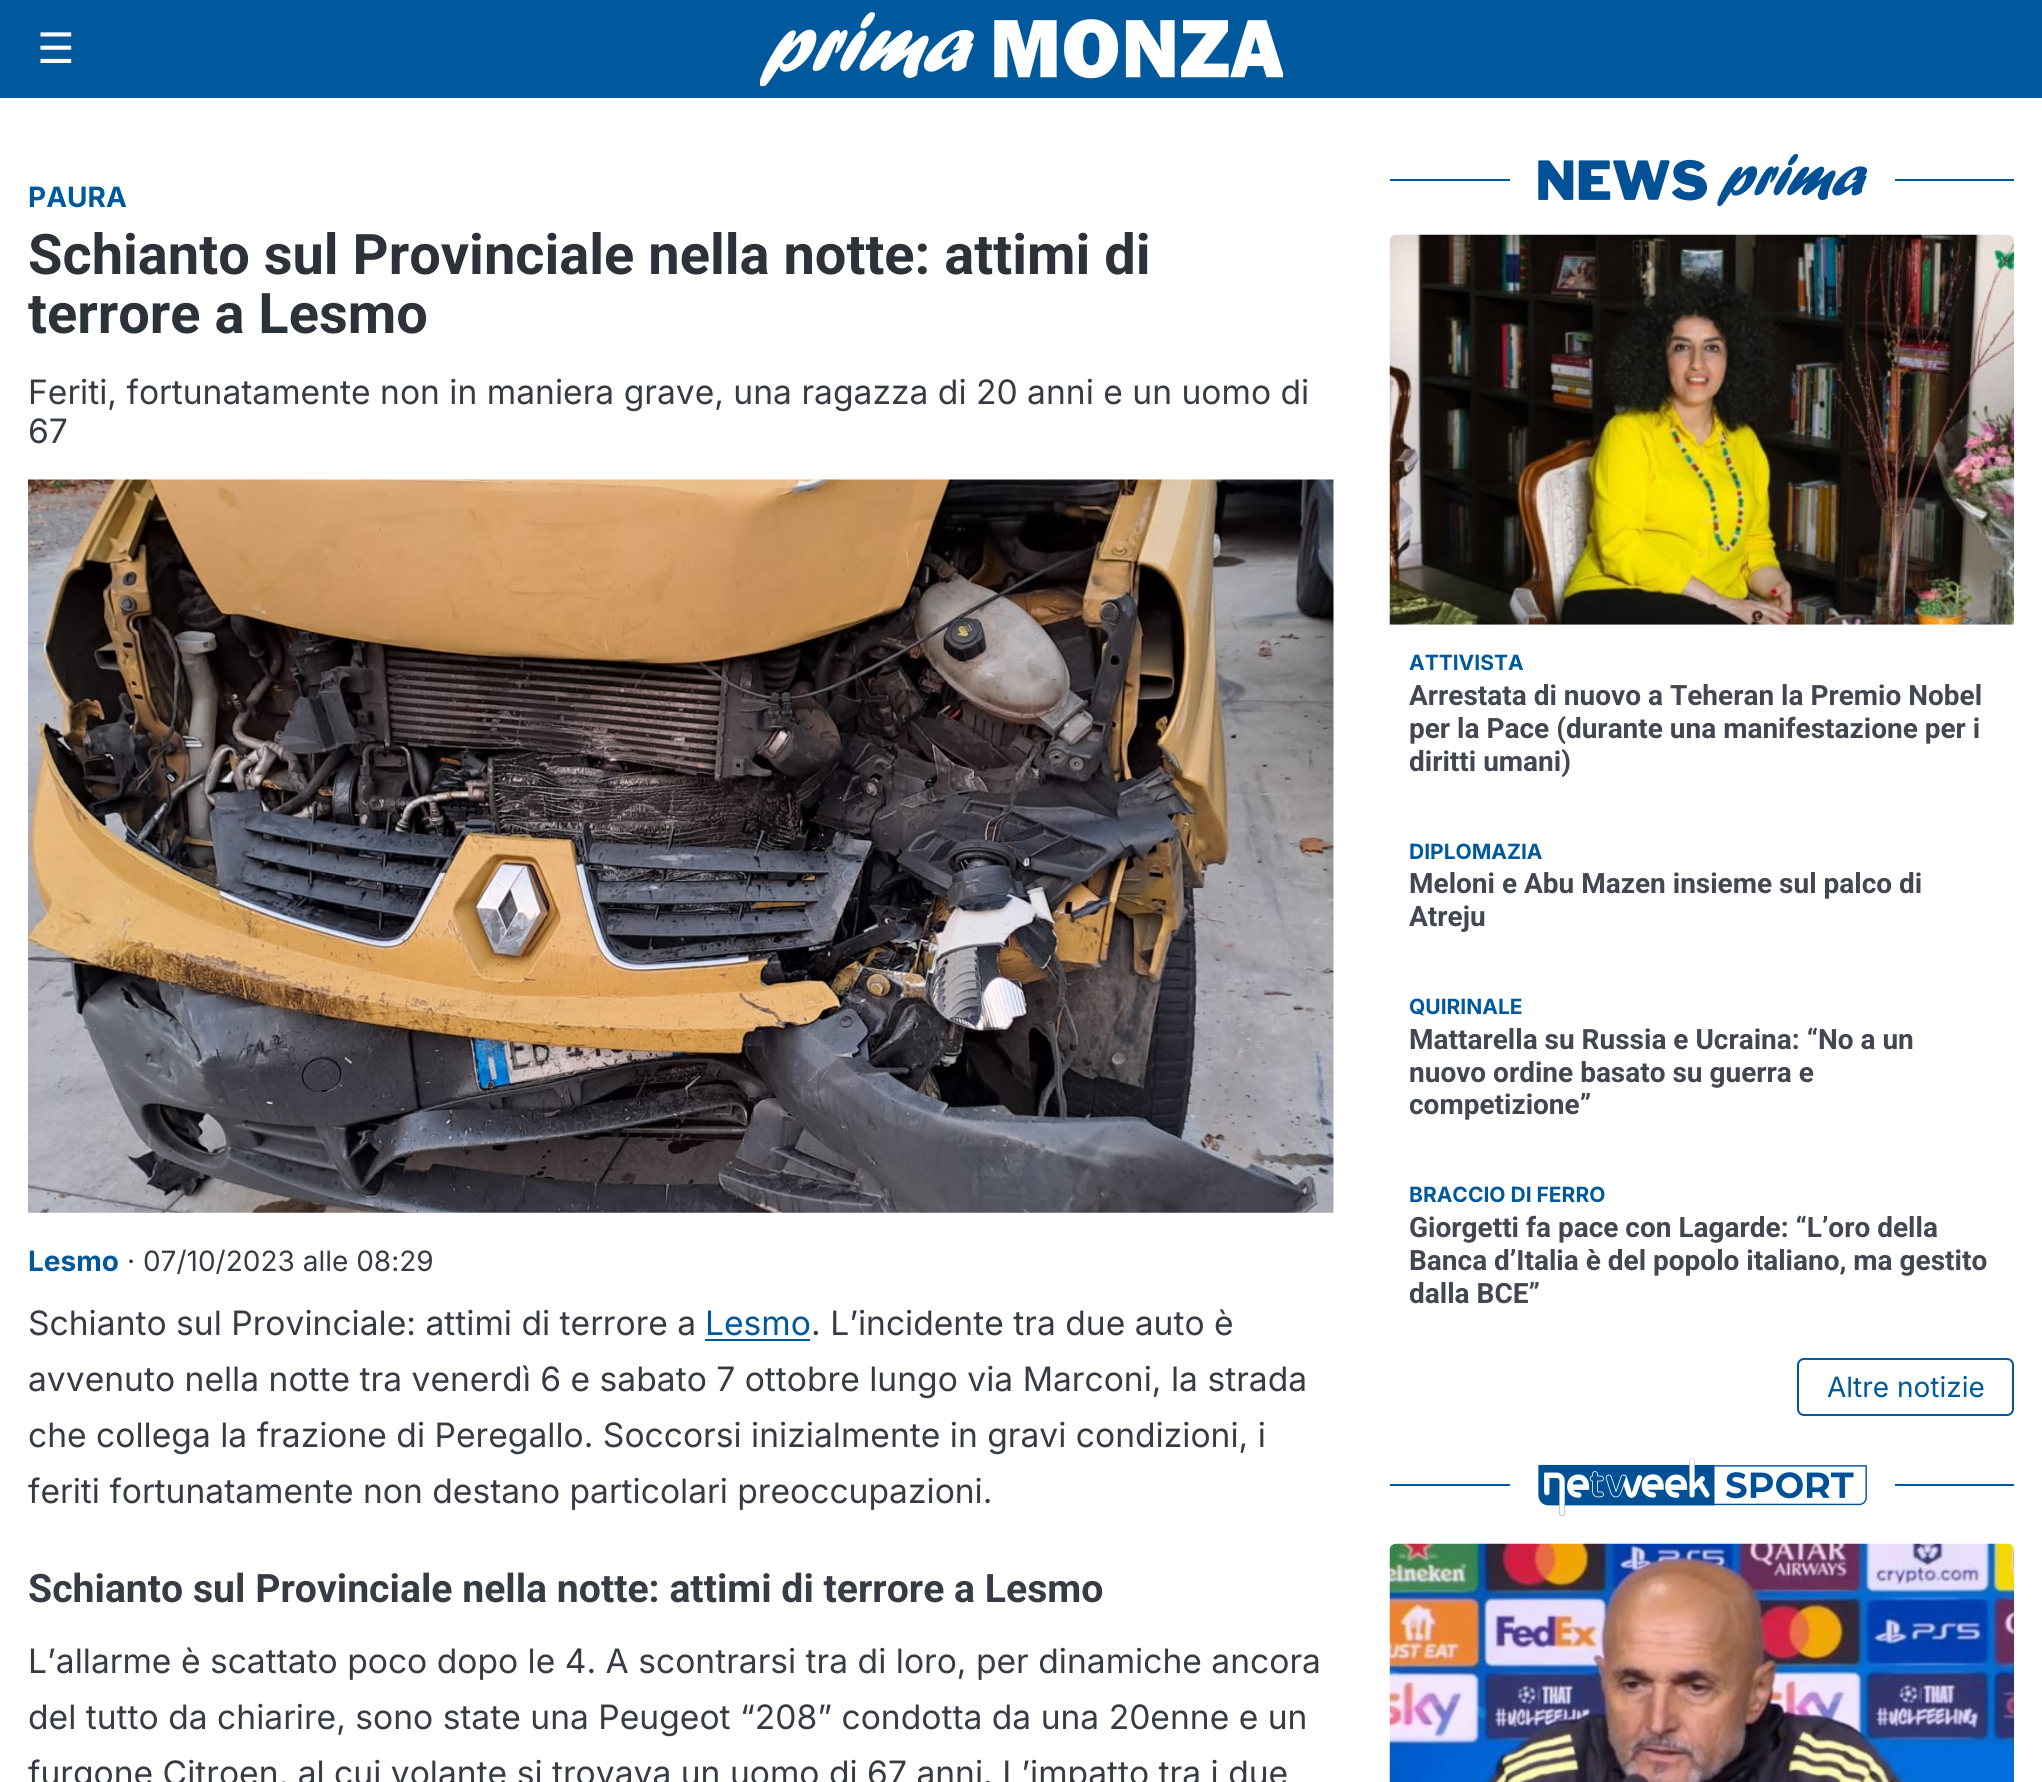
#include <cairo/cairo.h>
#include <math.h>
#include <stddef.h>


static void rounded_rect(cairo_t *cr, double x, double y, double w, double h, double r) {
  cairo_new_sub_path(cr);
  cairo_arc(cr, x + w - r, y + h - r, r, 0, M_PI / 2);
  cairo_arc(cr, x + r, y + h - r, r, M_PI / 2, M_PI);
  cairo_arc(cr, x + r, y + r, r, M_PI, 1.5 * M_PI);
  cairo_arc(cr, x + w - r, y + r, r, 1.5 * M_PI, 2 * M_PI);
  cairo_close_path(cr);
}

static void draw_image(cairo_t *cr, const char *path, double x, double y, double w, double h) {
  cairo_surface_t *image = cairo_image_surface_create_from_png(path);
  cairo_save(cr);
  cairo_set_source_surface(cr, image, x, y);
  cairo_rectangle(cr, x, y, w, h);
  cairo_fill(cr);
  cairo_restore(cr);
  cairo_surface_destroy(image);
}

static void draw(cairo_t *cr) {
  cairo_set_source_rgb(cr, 1, 1, 1);
  cairo_paint(cr);
  cairo_set_source_rgb(cr, 0, 89 / 255.0, 156 / 255.0);
  cairo_rectangle(cr, 0, 0, 2042, 98);
  cairo_fill(cr);
  draw_image(cr, "images/1.png", 760, 12, 523, 74);
  draw_image(cr, "images/2.png", 28, 479, 1306, 734);
  cairo_rectangle(cr, 705, 1339, 105, 2);
  cairo_fill(cr);
  cairo_rectangle(cr, 1390, 179, 624, 2);
  cairo_fill(cr);
  cairo_set_source_rgb(cr, 1, 1, 1);
  cairo_rectangle(cr, 1510, 179, 385, 2);
  cairo_fill(cr);
  draw_image(cr, "images/3.png", 1538, 154, 329, 53);
  draw_image(cr, "images/4.png", 1389, 234, 626, 391);
  rounded_rect(cr, 1798, 1359, 215, 56, 6);
  cairo_set_source_rgb(cr, 0, 89 / 255.0, 156 / 255.0);
  cairo_stroke(cr);
  cairo_rectangle(cr, 1390, 1484, 624, 2);
  cairo_fill(cr);
  cairo_set_source_rgb(cr, 1, 1, 1);
  cairo_rectangle(cr, 1510, 1484, 385, 2);
  cairo_fill(cr);
  draw_image(cr, "images/5.png", 1538, 1458, 329, 58);
  draw_image(cr, "images/6.png", 1389, 1543, 626, 239);
  cairo_select_font_face(cr, "DejaVu Sans", CAIRO_FONT_SLANT_NORMAL, CAIRO_FONT_WEIGHT_NORMAL);
  cairo_set_font_size(cr, 42);
  cairo_move_to(cr, 37, 63);
  cairo_show_text(cr, "☰");
  cairo_select_font_face(cr, "Inter", CAIRO_FONT_SLANT_NORMAL, CAIRO_FONT_WEIGHT_BOLD);
  cairo_set_font_size(cr, 28);
  cairo_set_source_rgb(cr, 0, 89 / 255.0, 156 / 255.0);
  cairo_move_to(cr, 28, 207);
  cairo_show_text(cr, "PAURA");
  cairo_select_font_face(cr, "Roboto", CAIRO_FONT_SLANT_NORMAL, CAIRO_FONT_WEIGHT_BOLD);
  cairo_set_font_size(cr, 56);
  cairo_set_source_rgb(cr, 45 / 255.0, 49 / 255.0, 56 / 255.0);
  cairo_move_to(cr, 28, 274);
  cairo_show_text(cr, "Schianto sul Provinciale nella notte: attimi di");
  cairo_move_to(cr, 28, 333);
  cairo_show_text(cr, "terrore a Lesmo");
  cairo_select_font_face(cr, "Inter", CAIRO_FONT_SLANT_NORMAL, CAIRO_FONT_WEIGHT_NORMAL);
  cairo_set_font_size(cr, 33.6);
  cairo_set_source_rgb(cr, 55 / 255.0, 60 / 255.0, 68 / 255.0);
  cairo_move_to(cr, 28, 404);
  cairo_show_text(cr, "Feriti, fortunatamente non in maniera grave, una ragazza di 20 anni e un uomo di");
  cairo_move_to(cr, 28, 443);
  cairo_show_text(cr, "67");
  cairo_select_font_face(cr, "Inter", CAIRO_FONT_SLANT_NORMAL, CAIRO_FONT_WEIGHT_BOLD);
  cairo_set_font_size(cr, 28);
  cairo_set_source_rgb(cr, 0, 89 / 255.0, 156 / 255.0);
  cairo_move_to(cr, 28, 1271);
  cairo_show_text(cr, "Lesmo");
  cairo_select_font_face(cr, "Inter", CAIRO_FONT_SLANT_NORMAL, CAIRO_FONT_WEIGHT_NORMAL);
  cairo_set_source_rgb(cr, 55 / 255.0, 60 / 255.0, 68 / 255.0);
  cairo_move_to(cr, 127, 1271);
  cairo_show_text(cr, "· 07/10/2023 alle 08:29");
  cairo_set_font_size(cr, 33.6);
  cairo_move_to(cr, 28, 1335);
  cairo_show_text(cr, "Schianto sul Provinciale: attimi di terrore a");
  cairo_set_source_rgb(cr, 0, 89 / 255.0, 156 / 255.0);
  cairo_move_to(cr, 705, 1335);
  cairo_show_text(cr, "Lesmo");
  cairo_set_source_rgb(cr, 55 / 255.0, 60 / 255.0, 68 / 255.0);
  cairo_move_to(cr, 811, 1335);
  cairo_show_text(cr, ". L’incidente tra due auto è");
  cairo_move_to(cr, 28, 1391);
  cairo_show_text(cr, "avvenuto nella notte tra venerdì 6 e sabato 7 ottobre lungo via Marconi, la strada");
  cairo_move_to(cr, 28, 1447);
  cairo_show_text(cr, "che collega la frazione di Peregallo. Soccorsi inizialmente in gravi condizioni, i");
  cairo_move_to(cr, 28, 1503);
  cairo_show_text(cr, "feriti fortunatamente non destano particolari preoccupazioni.");
  cairo_select_font_face(cr, "Roboto", CAIRO_FONT_SLANT_NORMAL, CAIRO_FONT_WEIGHT_BOLD);
  cairo_set_font_size(cr, 39.2);
  cairo_move_to(cr, 28, 1602);
  cairo_show_text(cr, "Schianto sul Provinciale nella notte: attimi di terrore a Lesmo");
  cairo_select_font_face(cr, "Inter", CAIRO_FONT_SLANT_NORMAL, CAIRO_FONT_WEIGHT_NORMAL);
  cairo_set_font_size(cr, 33.6);
  cairo_move_to(cr, 28, 1673);
  cairo_show_text(cr, "L’allarme è scattato poco dopo le 4. A scontrarsi tra di loro, per dinamiche ancora");
  cairo_move_to(cr, 28, 1729);
  cairo_show_text(cr, "del tutto da chiarire, sono state una Peugeot “208” condotta da una 20enne e un");
  cairo_move_to(cr, 28, 1785);
  cairo_show_text(cr, "furgone Citroen, al cui volante si trovava un uomo di 67 anni. L’impatto tra i due");
  cairo_select_font_face(cr, "Inter", CAIRO_FONT_SLANT_NORMAL, CAIRO_FONT_WEIGHT_BOLD);
  cairo_set_font_size(cr, 21);
  cairo_set_source_rgb(cr, 0, 89 / 255.0, 156 / 255.0);
  cairo_move_to(cr, 1409, 670);
  cairo_show_text(cr, "ATTIVISTA");
  cairo_select_font_face(cr, "Roboto", CAIRO_FONT_SLANT_NORMAL, CAIRO_FONT_WEIGHT_BOLD);
  cairo_set_font_size(cr, 28);
  cairo_set_source_rgb(cr, 66 / 255.0, 71 / 255.0, 81 / 255.0);
  cairo_move_to(cr, 1409, 705);
  cairo_show_text(cr, "Arrestata di nuovo a Teheran la Premio Nobel");
  cairo_move_to(cr, 1409, 738);
  cairo_show_text(cr, "per la Pace (durante una manifestazione per i");
  cairo_move_to(cr, 1409, 771);
  cairo_show_text(cr, "diritti umani)");
  cairo_select_font_face(cr, "Inter", CAIRO_FONT_SLANT_NORMAL, CAIRO_FONT_WEIGHT_BOLD);
  cairo_set_font_size(cr, 21);
  cairo_set_source_rgb(cr, 0, 89 / 255.0, 156 / 255.0);
  cairo_move_to(cr, 1409, 859);
  cairo_show_text(cr, "DIPLOMAZIA");
  cairo_select_font_face(cr, "Roboto", CAIRO_FONT_SLANT_NORMAL, CAIRO_FONT_WEIGHT_BOLD);
  cairo_set_font_size(cr, 28);
  cairo_set_source_rgb(cr, 66 / 255.0, 71 / 255.0, 81 / 255.0);
  cairo_move_to(cr, 1409, 893);
  cairo_show_text(cr, "Meloni e Abu Mazen insieme sul palco di");
  cairo_move_to(cr, 1409, 926);
  cairo_show_text(cr, "Atreju");
  cairo_select_font_face(cr, "Inter", CAIRO_FONT_SLANT_NORMAL, CAIRO_FONT_WEIGHT_BOLD);
  cairo_set_font_size(cr, 21);
  cairo_set_source_rgb(cr, 0, 89 / 255.0, 156 / 255.0);
  cairo_move_to(cr, 1409, 1014);
  cairo_show_text(cr, "QUIRINALE");
  cairo_select_font_face(cr, "Roboto", CAIRO_FONT_SLANT_NORMAL, CAIRO_FONT_WEIGHT_BOLD);
  cairo_set_font_size(cr, 28);
  cairo_set_source_rgb(cr, 66 / 255.0, 71 / 255.0, 81 / 255.0);
  cairo_move_to(cr, 1409, 1049);
  cairo_show_text(cr, "Mattarella su Russia e Ucraina: “No a un");
  cairo_move_to(cr, 1409, 1082);
  cairo_show_text(cr, "nuovo ordine basato su guerra e");
  cairo_move_to(cr, 1409, 1114);
  cairo_show_text(cr, "competizione”");
  cairo_select_font_face(cr, "Inter", CAIRO_FONT_SLANT_NORMAL, CAIRO_FONT_WEIGHT_BOLD);
  cairo_set_font_size(cr, 21);
  cairo_set_source_rgb(cr, 0, 89 / 255.0, 156 / 255.0);
  cairo_move_to(cr, 1409, 1202);
  cairo_show_text(cr, "BRACCIO DI FERRO");
  cairo_select_font_face(cr, "Roboto", CAIRO_FONT_SLANT_NORMAL, CAIRO_FONT_WEIGHT_BOLD);
  cairo_set_font_size(cr, 28);
  cairo_set_source_rgb(cr, 66 / 255.0, 71 / 255.0, 81 / 255.0);
  cairo_move_to(cr, 1409, 1237);
  cairo_show_text(cr, "Giorgetti fa pace con Lagarde: “L’oro della");
  cairo_move_to(cr, 1409, 1270);
  cairo_show_text(cr, "Banca d’Italia è del popolo italiano, ma gestito");
  cairo_move_to(cr, 1409, 1303);
  cairo_show_text(cr, "dalla BCE”");
  cairo_select_font_face(cr, "Inter", CAIRO_FONT_SLANT_NORMAL, CAIRO_FONT_WEIGHT_NORMAL);
  cairo_set_source_rgb(cr, 0, 89 / 255.0, 156 / 255.0);
  cairo_move_to(cr, 1827, 1397);
  cairo_show_text(cr, "Altre notizie");
}

int main(void) {
  cairo_surface_t *surface = cairo_image_surface_create(CAIRO_FORMAT_RGB24, 2042, 1782);
  cairo_t *cr = cairo_create(surface);
  cairo_font_options_t *options = cairo_font_options_create();
  cairo_font_options_set_hint_metrics(options, CAIRO_HINT_METRICS_OFF);
  cairo_font_options_set_hint_style(options, CAIRO_HINT_STYLE_NONE);
  cairo_set_font_options(cr, options);
  cairo_set_miter_limit(cr, 4);
  draw(cr);
  cairo_surface_write_to_png(surface, "out.png");
  cairo_font_options_destroy(options);
  cairo_destroy(cr);
  cairo_surface_destroy(surface);
  return 0;
}
